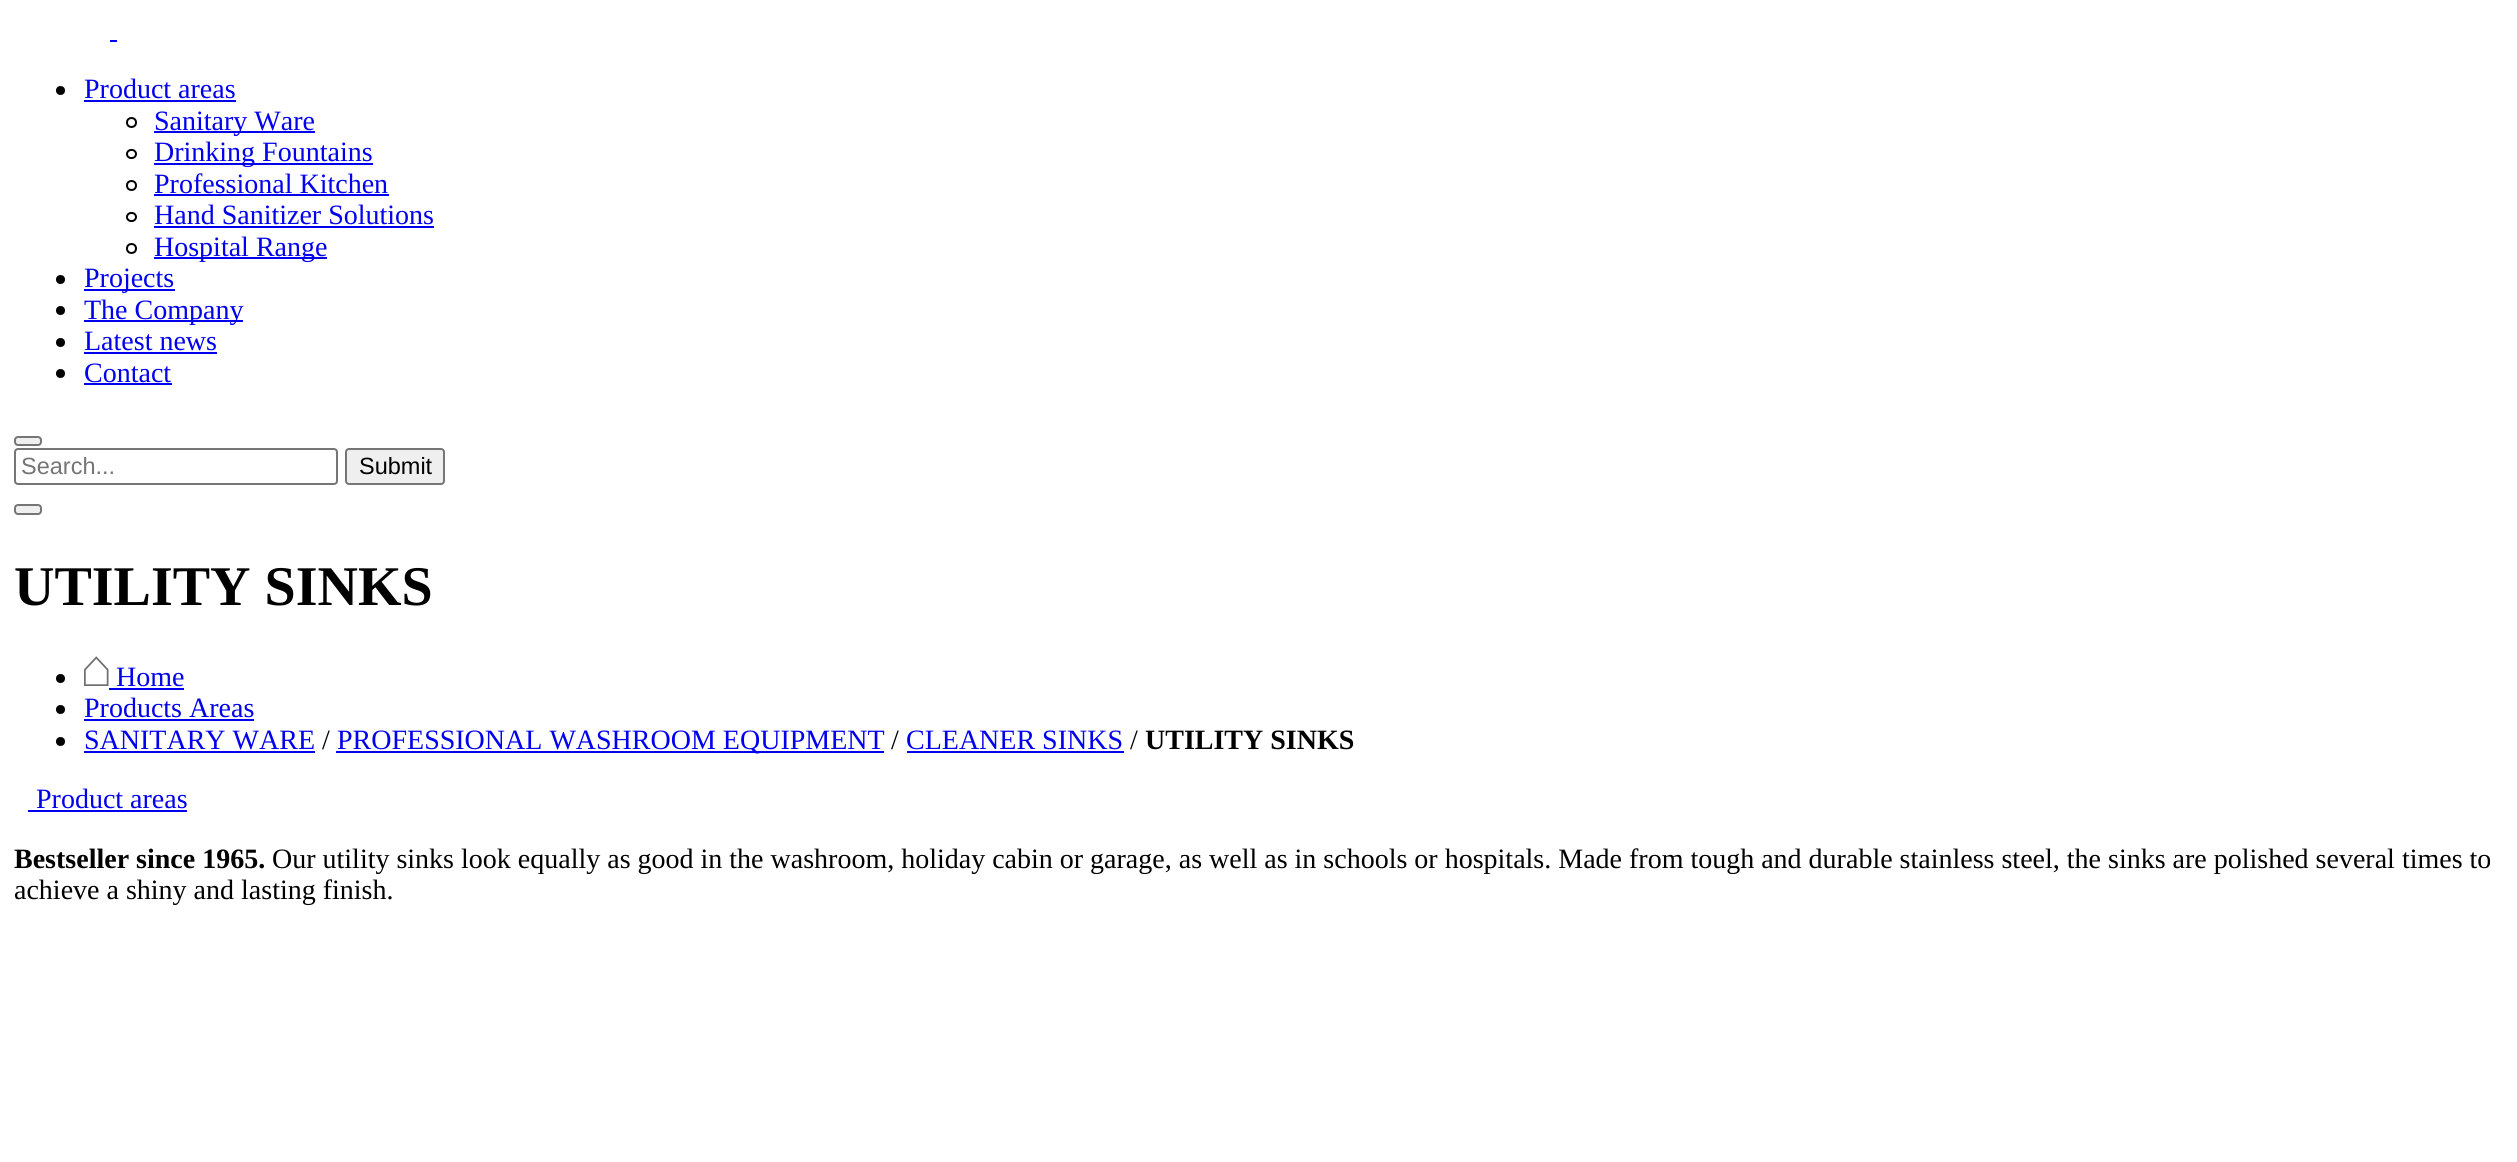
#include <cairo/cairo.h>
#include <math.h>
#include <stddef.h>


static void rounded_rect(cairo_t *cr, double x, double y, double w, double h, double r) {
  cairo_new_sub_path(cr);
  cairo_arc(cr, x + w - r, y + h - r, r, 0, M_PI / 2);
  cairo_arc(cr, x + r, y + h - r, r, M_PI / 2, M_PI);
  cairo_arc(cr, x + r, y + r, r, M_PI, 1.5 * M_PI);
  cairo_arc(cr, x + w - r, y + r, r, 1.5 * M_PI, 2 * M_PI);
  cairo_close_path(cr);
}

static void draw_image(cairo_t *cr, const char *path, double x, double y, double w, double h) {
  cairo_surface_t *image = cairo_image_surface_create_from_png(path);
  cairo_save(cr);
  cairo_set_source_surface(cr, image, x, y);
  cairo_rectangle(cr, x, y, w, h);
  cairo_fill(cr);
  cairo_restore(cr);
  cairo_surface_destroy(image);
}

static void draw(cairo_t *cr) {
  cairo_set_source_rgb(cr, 1, 1, 1);
  cairo_paint(cr);
  cairo_set_source_rgb(cr, 0, 0, 238 / 255.0);
  cairo_rectangle(cr, 110, 40, 7, 2);
  cairo_fill(cr);
  cairo_set_source_rgb(cr, 0, 0, 0);
  cairo_arc(cr, 60.5, 90.5, 4.5, 0, 2 * M_PI);
  cairo_fill(cr);
  cairo_set_source_rgb(cr, 0, 0, 238 / 255.0);
  cairo_rectangle(cr, 84, 100, 152, 2);
  cairo_fill(cr);
  cairo_arc(cr, 131.5, 122.5, 4.5, 0, 2 * M_PI);
  cairo_set_source_rgb(cr, 0, 0, 0);
  cairo_stroke(cr);
  cairo_set_source_rgb(cr, 0, 0, 238 / 255.0);
  cairo_rectangle(cr, 154, 131, 161, 2);
  cairo_fill(cr);
  rounded_rect(cr, 127, 150, 9, 8, 4);
  cairo_set_source_rgb(cr, 0, 0, 0);
  cairo_stroke(cr);
  cairo_set_source_rgb(cr, 0, 0, 238 / 255.0);
  cairo_rectangle(cr, 154, 163, 219, 2);
  cairo_fill(cr);
  cairo_arc(cr, 131.5, 185.5, 4.5, 0, 2 * M_PI);
  cairo_set_source_rgb(cr, 0, 0, 0);
  cairo_stroke(cr);
  cairo_set_source_rgb(cr, 0, 0, 238 / 255.0);
  cairo_rectangle(cr, 154, 194, 235, 2);
  cairo_fill(cr);
  rounded_rect(cr, 127, 213, 9, 8, 4);
  cairo_set_source_rgb(cr, 0, 0, 0);
  cairo_stroke(cr);
  cairo_set_source_rgb(cr, 0, 0, 238 / 255.0);
  cairo_rectangle(cr, 154, 226, 280, 2);
  cairo_fill(cr);
  cairo_arc(cr, 131.5, 248.5, 4.5, 0, 2 * M_PI);
  cairo_set_source_rgb(cr, 0, 0, 0);
  cairo_stroke(cr);
  cairo_set_source_rgb(cr, 0, 0, 238 / 255.0);
  cairo_rectangle(cr, 154, 257, 173, 2);
  cairo_fill(cr);
  cairo_set_source_rgb(cr, 0, 0, 0);
  cairo_arc(cr, 60.5, 279.5, 4.5, 0, 2 * M_PI);
  cairo_fill(cr);
  cairo_set_source_rgb(cr, 0, 0, 238 / 255.0);
  cairo_rectangle(cr, 84, 289, 91, 2);
  cairo_fill(cr);
  cairo_set_source_rgb(cr, 0, 0, 0);
  cairo_arc(cr, 60.5, 310.5, 4.5, 0, 2 * M_PI);
  cairo_fill(cr);
  cairo_set_source_rgb(cr, 0, 0, 238 / 255.0);
  cairo_rectangle(cr, 84, 320, 159, 2);
  cairo_fill(cr);
  cairo_set_source_rgb(cr, 0, 0, 0);
  cairo_arc(cr, 60.5, 342.5, 4.5, 0, 2 * M_PI);
  cairo_fill(cr);
  cairo_set_source_rgb(cr, 0, 0, 238 / 255.0);
  cairo_rectangle(cr, 84, 352, 133, 2);
  cairo_fill(cr);
  cairo_set_source_rgb(cr, 0, 0, 0);
  cairo_arc(cr, 60.5, 373.5, 4.5, 0, 2 * M_PI);
  cairo_fill(cr);
  cairo_set_source_rgb(cr, 0, 0, 238 / 255.0);
  cairo_rectangle(cr, 84, 383, 88, 2);
  cairo_fill(cr);
  cairo_set_source_rgb(cr, 239 / 255.0, 239 / 255.0, 239 / 255.0);
  rounded_rect(cr, 15, 437, 26, 8, 3);
  cairo_fill_preserve(cr);
  cairo_set_source_rgb(cr, 118 / 255.0, 118 / 255.0, 118 / 255.0);
  cairo_stroke(cr);
  rounded_rect(cr, 15, 449, 322, 35, 3);
  cairo_stroke(cr);
  cairo_set_source_rgb(cr, 239 / 255.0, 239 / 255.0, 239 / 255.0);
  rounded_rect(cr, 346, 449, 98, 35, 3);
  cairo_fill_preserve(cr);
  cairo_set_source_rgb(cr, 118 / 255.0, 118 / 255.0, 118 / 255.0);
  cairo_stroke(cr);
  cairo_set_source_rgb(cr, 239 / 255.0, 239 / 255.0, 239 / 255.0);
  rounded_rect(cr, 15, 505, 26, 9, 3);
  cairo_fill_preserve(cr);
  cairo_set_source_rgb(cr, 118 / 255.0, 118 / 255.0, 118 / 255.0);
  cairo_stroke(cr);
  cairo_set_source_rgb(cr, 0, 0, 0);
  cairo_arc(cr, 60.5, 678.5, 4.5, 0, 2 * M_PI);
  cairo_fill(cr);
  draw_image(cr, "images/1.png", 84, 656, 25, 30);
  cairo_set_source_rgb(cr, 0, 0, 238 / 255.0);
  cairo_rectangle(cr, 109, 688, 75, 2);
  cairo_fill(cr);
  cairo_set_source_rgb(cr, 0, 0, 0);
  cairo_arc(cr, 60.5, 709.5, 4.5, 0, 2 * M_PI);
  cairo_fill(cr);
  cairo_set_source_rgb(cr, 0, 0, 238 / 255.0);
  cairo_rectangle(cr, 84, 719, 170, 2);
  cairo_fill(cr);
  cairo_set_source_rgb(cr, 0, 0, 0);
  cairo_arc(cr, 60.5, 741.5, 4.5, 0, 2 * M_PI);
  cairo_fill(cr);
  cairo_set_source_rgb(cr, 0, 0, 238 / 255.0);
  cairo_rectangle(cr, 84, 751, 231, 2);
  cairo_fill(cr);
  cairo_rectangle(cr, 336, 751, 548, 2);
  cairo_fill(cr);
  cairo_rectangle(cr, 907, 751, 217, 2);
  cairo_fill(cr);
  cairo_rectangle(cr, 28, 810, 159, 2);
  cairo_fill(cr);
  cairo_select_font_face(cr, "Liberation Serif", CAIRO_FONT_SLANT_NORMAL, CAIRO_FONT_WEIGHT_NORMAL);
  cairo_set_font_size(cr, 28);
  cairo_move_to(cr, 84, 98);
  cairo_show_text(cr, "Product areas");
  cairo_move_to(cr, 154, 130);
  cairo_show_text(cr, "Sanitary Ware");
  cairo_move_to(cr, 154, 161);
  cairo_show_text(cr, "Drinking Fountains");
  cairo_move_to(cr, 154, 193);
  cairo_show_text(cr, "Professional Kitchen");
  cairo_move_to(cr, 154, 224);
  cairo_show_text(cr, "Hand Sanitizer Solutions");
  cairo_move_to(cr, 154, 256);
  cairo_show_text(cr, "Hospital Range");
  cairo_move_to(cr, 84, 287);
  cairo_show_text(cr, "Projects");
  cairo_move_to(cr, 84, 319);
  cairo_show_text(cr, "The Company");
  cairo_move_to(cr, 84, 350);
  cairo_show_text(cr, "Latest news");
  cairo_move_to(cr, 84, 382);
  cairo_show_text(cr, "Contact");
  cairo_select_font_face(cr, "Liberation Sans", CAIRO_FONT_SLANT_NORMAL, CAIRO_FONT_WEIGHT_NORMAL);
  cairo_set_font_size(cr, 23.5);
  cairo_set_source_rgb(cr, 117 / 255.0, 117 / 255.0, 117 / 255.0);
  cairo_move_to(cr, 21, 474);
  cairo_show_text(cr, "Search...");
  cairo_set_source_rgb(cr, 0, 0, 0);
  cairo_move_to(cr, 359, 474);
  cairo_show_text(cr, "Submit");
  cairo_select_font_face(cr, "Liberation Serif", CAIRO_FONT_SLANT_NORMAL, CAIRO_FONT_WEIGHT_BOLD);
  cairo_set_font_size(cr, 56);
  cairo_move_to(cr, 14, 605);
  cairo_show_text(cr, "UTILITY SINKS");
  cairo_select_font_face(cr, "Liberation Serif", CAIRO_FONT_SLANT_NORMAL, CAIRO_FONT_WEIGHT_NORMAL);
  cairo_set_font_size(cr, 28);
  cairo_set_source_rgb(cr, 0, 0, 238 / 255.0);
  cairo_move_to(cr, 116, 686);
  cairo_show_text(cr, "Home");
  cairo_move_to(cr, 84, 717);
  cairo_show_text(cr, "Products Areas");
  cairo_move_to(cr, 84, 749);
  cairo_show_text(cr, "SANITARY WARE");
  cairo_set_source_rgb(cr, 0, 0, 0);
  cairo_move_to(cr, 322, 749);
  cairo_show_text(cr, "/");
  cairo_set_source_rgb(cr, 0, 0, 238 / 255.0);
  cairo_move_to(cr, 337, 749);
  cairo_show_text(cr, "PROFESSIONAL WASHROOM EQUIPMENT");
  cairo_set_source_rgb(cr, 0, 0, 0);
  cairo_move_to(cr, 891, 749);
  cairo_show_text(cr, "/");
  cairo_set_source_rgb(cr, 0, 0, 238 / 255.0);
  cairo_move_to(cr, 906, 749);
  cairo_show_text(cr, "CLEANER SINKS");
  cairo_set_source_rgb(cr, 0, 0, 0);
  cairo_move_to(cr, 1130, 749);
  cairo_show_text(cr, "/");
  cairo_select_font_face(cr, "Liberation Serif", CAIRO_FONT_SLANT_NORMAL, CAIRO_FONT_WEIGHT_BOLD);
  cairo_move_to(cr, 1145, 749);
  cairo_show_text(cr, "UTILITY SINKS");
  cairo_select_font_face(cr, "Liberation Serif", CAIRO_FONT_SLANT_NORMAL, CAIRO_FONT_WEIGHT_NORMAL);
  cairo_set_source_rgb(cr, 0, 0, 238 / 255.0);
  cairo_move_to(cr, 36, 808);
  cairo_show_text(cr, "Product areas");
  cairo_select_font_face(cr, "Liberation Serif", CAIRO_FONT_SLANT_NORMAL, CAIRO_FONT_WEIGHT_BOLD);
  cairo_set_source_rgb(cr, 0, 0, 0);
  cairo_move_to(cr, 14, 868);
  cairo_show_text(cr, "Bestseller since 1965.");
  cairo_select_font_face(cr, "Liberation Serif", CAIRO_FONT_SLANT_NORMAL, CAIRO_FONT_WEIGHT_NORMAL);
  cairo_move_to(cr, 272, 868);
  cairo_show_text(cr, "Our utility sinks look equally as good in the washroom, holiday cabin or garage, as well as in schools or hospitals. Made from tough and durable stainless steel, the sinks are polished several times to");
  cairo_move_to(cr, 14, 899);
  cairo_show_text(cr, "achieve a shiny and lasting finish.");
}

int main(void) {
  cairo_surface_t *surface = cairo_image_surface_create(CAIRO_FORMAT_RGB24, 2517, 1162);
  cairo_t *cr = cairo_create(surface);
  cairo_font_options_t *options = cairo_font_options_create();
  cairo_font_options_set_hint_metrics(options, CAIRO_HINT_METRICS_OFF);
  cairo_font_options_set_hint_style(options, CAIRO_HINT_STYLE_NONE);
  cairo_set_font_options(cr, options);
  cairo_set_miter_limit(cr, 4);
  draw(cr);
  cairo_surface_write_to_png(surface, "out.png");
  cairo_font_options_destroy(options);
  cairo_destroy(cr);
  cairo_surface_destroy(surface);
  return 0;
}
